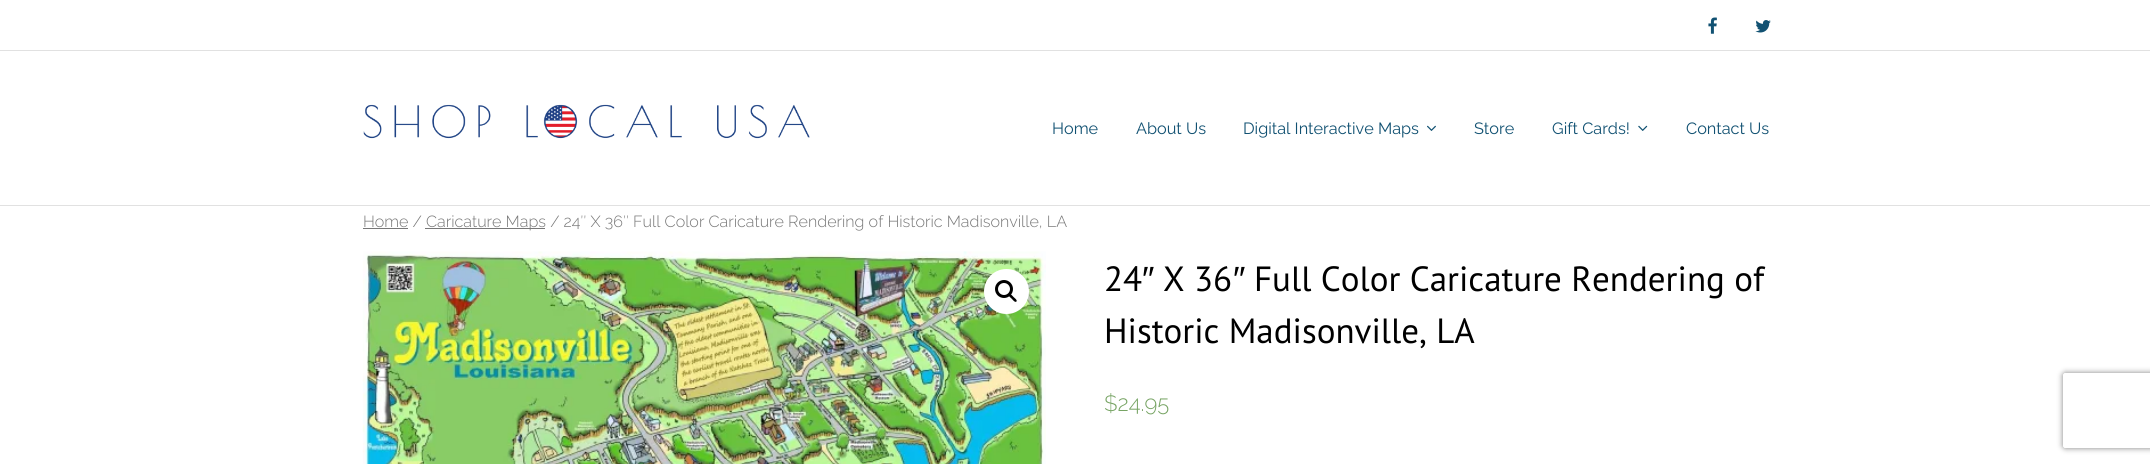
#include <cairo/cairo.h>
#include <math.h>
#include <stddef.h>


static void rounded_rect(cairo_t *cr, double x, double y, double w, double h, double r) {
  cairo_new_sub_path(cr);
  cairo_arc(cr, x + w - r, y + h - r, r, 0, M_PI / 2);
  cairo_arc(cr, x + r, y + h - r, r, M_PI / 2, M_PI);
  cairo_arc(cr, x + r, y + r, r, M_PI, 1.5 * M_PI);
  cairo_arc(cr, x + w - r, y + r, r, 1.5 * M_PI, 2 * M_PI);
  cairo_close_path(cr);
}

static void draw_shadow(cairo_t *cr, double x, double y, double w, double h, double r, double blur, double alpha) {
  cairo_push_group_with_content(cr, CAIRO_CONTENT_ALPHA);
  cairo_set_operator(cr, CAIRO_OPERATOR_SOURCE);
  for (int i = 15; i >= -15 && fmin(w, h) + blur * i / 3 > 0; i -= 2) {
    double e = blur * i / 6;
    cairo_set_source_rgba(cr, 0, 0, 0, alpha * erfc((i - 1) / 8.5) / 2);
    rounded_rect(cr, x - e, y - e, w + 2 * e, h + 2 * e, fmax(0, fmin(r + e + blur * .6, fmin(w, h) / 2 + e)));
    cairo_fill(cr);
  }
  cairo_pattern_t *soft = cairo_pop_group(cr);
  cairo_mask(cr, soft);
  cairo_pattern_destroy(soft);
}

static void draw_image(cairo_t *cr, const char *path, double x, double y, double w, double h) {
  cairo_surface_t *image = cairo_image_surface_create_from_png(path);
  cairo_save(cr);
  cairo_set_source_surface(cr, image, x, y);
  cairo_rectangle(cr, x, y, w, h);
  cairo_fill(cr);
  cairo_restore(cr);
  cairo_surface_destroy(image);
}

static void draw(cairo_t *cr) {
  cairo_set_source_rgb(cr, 1, 1, 1);
  cairo_paint(cr);
  cairo_set_source_rgb(cr, 225 / 255.0, 225 / 255.0, 225 / 255.0);
  cairo_rectangle(cr, 0, 50, 2150, 1);
  cairo_fill(cr);
  draw_image(cr, "images/1.png", 1708, 17, 9, 17);
  draw_image(cr, "images/2.png", 1755, 20, 16, 13);
  cairo_rectangle(cr, 0, 205, 2150, 1);
  cairo_fill(cr);
  draw_image(cr, "images/3.png", 363, 104, 447, 35);
  draw_image(cr, "images/4.png", 1427, 125, 9, 6);
  draw_image(cr, "images/5.png", 1638, 125, 10, 6);
  cairo_set_source_rgb(cr, 119 / 255.0, 119 / 255.0, 119 / 255.0);
  cairo_rectangle(cr, 363, 228, 45, 1);
  cairo_fill(cr);
  cairo_rectangle(cr, 425, 228, 120, 1);
  cairo_fill(cr);
  draw_image(cr, "images/6.png", 362, 251, 684, 213);
  cairo_set_source_rgb(cr, 1, 1, 1);
  cairo_arc(cr, 1006.5, 291.5, 22.5, 0, 2 * M_PI);
  cairo_fill(cr);
  cairo_arc(cr, 1004, 289, 7.5, 0, 2 * M_PI);
  cairo_set_source_rgb(cr, 0, 0, 0);
  cairo_set_line_width(cr, 3);
  cairo_stroke(cr);
  cairo_new_path(cr);
  cairo_move_to(cr, 1009, 294.5);
  cairo_curve_to(cr, 1010.5, 293, 1013, 296.5, 1013.5, 297);
  cairo_curve_to(cr, 1014.5, 298, 1017.5, 300, 1016.5, 301.5);
  cairo_curve_to(cr, 1015, 303, 1012.5, 299.5, 1012, 299);
  cairo_curve_to(cr, 1011, 298, 1008, 296, 1009, 294.5);
  cairo_close_path(cr);
  cairo_fill(cr);
  cairo_save(cr);
  cairo_set_fill_rule(cr, CAIRO_FILL_RULE_EVEN_ODD);
  cairo_new_path(cr);
  cairo_move_to(cr, 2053, 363);
  cairo_line_to(cr, 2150, 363);
  cairo_line_to(cr, 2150, 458);
  cairo_line_to(cr, 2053, 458);
  cairo_close_path(cr);
  cairo_move_to(cr, 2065.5, 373);
  cairo_line_to(cr, 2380.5, 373);
  cairo_curve_to(cr, 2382, 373, 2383, 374, 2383, 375.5);
  cairo_line_to(cr, 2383, 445.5);
  cairo_curve_to(cr, 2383, 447, 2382, 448, 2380.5, 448);
  cairo_line_to(cr, 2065.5, 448);
  cairo_curve_to(cr, 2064, 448, 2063, 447, 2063, 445.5);
  cairo_line_to(cr, 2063, 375.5);
  cairo_curve_to(cr, 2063, 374, 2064, 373, 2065.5, 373);
  cairo_close_path(cr);
  cairo_clip(cr);
  cairo_set_source_rgb(cr, 128 / 255.0, 128 / 255.0, 128 / 255.0);
  draw_shadow(cr, 2063, 373, 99, 75, 2.5, 3, 1);
  cairo_restore(cr);
  cairo_select_font_face(cr, "Raleway", CAIRO_FONT_SLANT_NORMAL, CAIRO_FONT_WEIGHT_NORMAL);
  cairo_set_font_size(cr, 16.25);
  cairo_set_source_rgb(cr, 17 / 255.0, 81 / 255.0, 114 / 255.0);
  cairo_move_to(cr, 1052, 134);
  cairo_show_text(cr, "Home");
  cairo_move_to(cr, 1136, 134);
  cairo_show_text(cr, "About Us");
  cairo_move_to(cr, 1243, 134);
  cairo_show_text(cr, "Digital Interactive Maps");
  cairo_move_to(cr, 1474, 134);
  cairo_show_text(cr, "Store");
  cairo_move_to(cr, 1552, 134);
  cairo_show_text(cr, "Gift Cards!");
  cairo_move_to(cr, 1686, 134);
  cairo_show_text(cr, "Contact Us");
  cairo_select_font_face(cr, "Raleway Light", CAIRO_FONT_SLANT_NORMAL, CAIRO_FONT_WEIGHT_NORMAL);
  cairo_set_font_size(cr, 16.1);
  cairo_set_source_rgb(cr, 119 / 255.0, 119 / 255.0, 119 / 255.0);
  cairo_move_to(cr, 363, 227);
  cairo_show_text(cr, "Home /");
  cairo_move_to(cr, 426, 227);
  cairo_show_text(cr, "Caricature Maps / 24″ X 36″ Full Color Caricature Rendering of Historic Madisonville, LA");
  cairo_select_font_face(cr, "PT Sans", CAIRO_FONT_SLANT_NORMAL, CAIRO_FONT_WEIGHT_NORMAL);
  cairo_set_font_size(cr, 35);
  cairo_set_source_rgb(cr, 0, 0, 0);
  cairo_move_to(cr, 1104, 291);
  cairo_show_text(cr, "24");
  cairo_select_font_face(cr, "Liberation Sans", CAIRO_FONT_SLANT_NORMAL, CAIRO_FONT_WEIGHT_NORMAL);
  cairo_move_to(cr, 1142, 291);
  cairo_show_text(cr, "″");
  cairo_select_font_face(cr, "PT Sans", CAIRO_FONT_SLANT_NORMAL, CAIRO_FONT_WEIGHT_NORMAL);
  cairo_move_to(cr, 1163, 291);
  cairo_show_text(cr, "X 36");
  cairo_select_font_face(cr, "Liberation Sans", CAIRO_FONT_SLANT_NORMAL, CAIRO_FONT_WEIGHT_NORMAL);
  cairo_move_to(cr, 1233, 291);
  cairo_show_text(cr, "″");
  cairo_select_font_face(cr, "PT Sans", CAIRO_FONT_SLANT_NORMAL, CAIRO_FONT_WEIGHT_NORMAL);
  cairo_move_to(cr, 1254, 291);
  cairo_show_text(cr, "Full Color Caricature Rendering of");
  cairo_move_to(cr, 1104, 343);
  cairo_show_text(cr, "Historic Madisonville, LA");
  cairo_select_font_face(cr, "Raleway Light", CAIRO_FONT_SLANT_NORMAL, CAIRO_FONT_WEIGHT_NORMAL);
  cairo_set_font_size(cr, 22);
  cairo_set_source_rgb(cr, 119 / 255.0, 164 / 255.0, 100 / 255.0);
  cairo_move_to(cr, 1104, 411);
  cairo_show_text(cr, "$24.95");
}

int main(void) {
  cairo_surface_t *surface = cairo_image_surface_create(CAIRO_FORMAT_RGB24, 2150, 464);
  cairo_t *cr = cairo_create(surface);
  cairo_font_options_t *options = cairo_font_options_create();
  cairo_font_options_set_hint_metrics(options, CAIRO_HINT_METRICS_OFF);
  cairo_font_options_set_hint_style(options, CAIRO_HINT_STYLE_NONE);
  cairo_set_font_options(cr, options);
  cairo_set_miter_limit(cr, 4);
  draw(cr);
  cairo_surface_write_to_png(surface, "out.png");
  cairo_font_options_destroy(options);
  cairo_destroy(cr);
  cairo_surface_destroy(surface);
  return 0;
}
